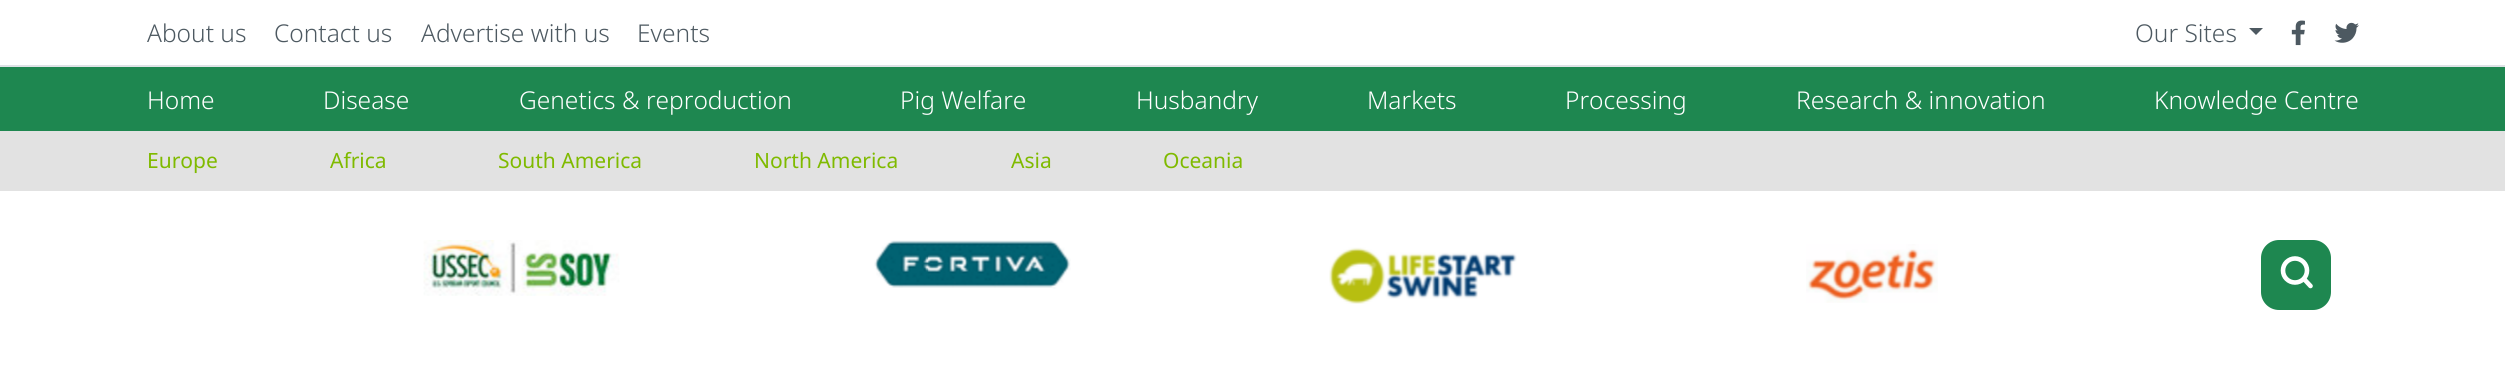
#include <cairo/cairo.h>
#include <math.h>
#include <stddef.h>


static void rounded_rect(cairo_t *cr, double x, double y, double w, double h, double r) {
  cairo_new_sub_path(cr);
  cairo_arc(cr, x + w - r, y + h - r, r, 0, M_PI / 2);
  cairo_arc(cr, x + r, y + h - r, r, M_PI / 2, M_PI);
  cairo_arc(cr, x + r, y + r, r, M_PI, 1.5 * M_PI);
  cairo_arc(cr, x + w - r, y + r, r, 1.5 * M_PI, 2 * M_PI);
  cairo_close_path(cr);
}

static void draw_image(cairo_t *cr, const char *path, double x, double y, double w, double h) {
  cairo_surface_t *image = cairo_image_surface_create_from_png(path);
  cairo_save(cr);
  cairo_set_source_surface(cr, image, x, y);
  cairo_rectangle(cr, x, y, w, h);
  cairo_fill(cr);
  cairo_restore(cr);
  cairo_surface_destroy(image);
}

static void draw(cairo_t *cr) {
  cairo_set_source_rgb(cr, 1, 1, 1);
  cairo_paint(cr);
  cairo_set_source_rgb(cr, 222 / 255.0, 226 / 255.0, 230 / 255.0);
  cairo_rectangle(cr, 0, 65, 2505, 2);
  cairo_fill(cr);
  cairo_set_source_rgb(cr, 77 / 255.0, 89 / 255.0, 97 / 255.0);
  cairo_new_path(cr);
  cairo_move_to(cr, 2249, 28);
  cairo_line_to(cr, 2263, 28);
  cairo_line_to(cr, 2256, 35);
  cairo_close_path(cr);
  cairo_fill(cr);
  draw_image(cr, "images/1.png", 2291, 20, 14, 26);
  draw_image(cr, "images/2.png", 2334, 22, 25, 21);
  cairo_set_source_rgb(cr, 30 / 255.0, 135 / 255.0, 80 / 255.0);
  cairo_rectangle(cr, 0, 67, 2505, 64);
  cairo_fill(cr);
  cairo_set_source_rgb(cr, 226 / 255.0, 226 / 255.0, 226 / 255.0);
  cairo_rectangle(cr, 0, 131, 2505, 60);
  cairo_fill(cr);
  draw_image(cr, "images/3.png", 423, 240, 197, 56);
  draw_image(cr, "images/4.png", 874, 240, 197, 49);
  draw_image(cr, "images/5.png", 1329, 247, 188, 57);
  draw_image(cr, "images/6.png", 1806, 244, 132, 59);
  cairo_set_source_rgb(cr, 30 / 255.0, 135 / 255.0, 80 / 255.0);
  rounded_rect(cr, 2261, 240, 70, 70, 18);
  cairo_fill(cr);
  cairo_arc(cr, 2295, 270.5, 12, 0, 2 * M_PI);
  cairo_set_source_rgb(cr, 1, 1, 1);
  cairo_set_line_width(cr, 4.6);
  cairo_stroke(cr);
  cairo_new_path(cr);
  cairo_move_to(cr, 2310.5, 286);
  cairo_line_to(cr, 2304, 279);
  cairo_set_line_cap(cr, CAIRO_LINE_CAP_ROUND);
  cairo_set_line_join(cr, CAIRO_LINE_JOIN_ROUND);
  cairo_stroke(cr);
  cairo_select_font_face(cr, "Noto Sans Light", CAIRO_FONT_SLANT_NORMAL, CAIRO_FONT_WEIGHT_NORMAL);
  cairo_set_font_size(cr, 24.5);
  cairo_set_source_rgb(cr, 77 / 255.0, 89 / 255.0, 97 / 255.0);
  cairo_move_to(cr, 147, 42);
  cairo_show_text(cr, "About us");
  cairo_move_to(cr, 274, 42);
  cairo_show_text(cr, "Contact us");
  cairo_move_to(cr, 421, 42);
  cairo_show_text(cr, "Advertise with us");
  cairo_move_to(cr, 637, 42);
  cairo_show_text(cr, "Events");
  cairo_move_to(cr, 2135, 42);
  cairo_show_text(cr, "Our Sites");
  cairo_set_source_rgb(cr, 1, 1, 1);
  cairo_move_to(cr, 147, 109);
  cairo_show_text(cr, "Home");
  cairo_move_to(cr, 323, 109);
  cairo_show_text(cr, "Disease");
  cairo_move_to(cr, 519, 109);
  cairo_show_text(cr, "Genetics & reproduction");
  cairo_move_to(cr, 900, 109);
  cairo_show_text(cr, "Pig Welfare");
  cairo_move_to(cr, 1136, 109);
  cairo_show_text(cr, "Husbandry");
  cairo_move_to(cr, 1367, 109);
  cairo_show_text(cr, "Markets");
  cairo_move_to(cr, 1565, 109);
  cairo_show_text(cr, "Processing");
  cairo_move_to(cr, 1796, 109);
  cairo_show_text(cr, "Research & innovation");
  cairo_move_to(cr, 2154, 109);
  cairo_show_text(cr, "Knowledge Centre");
  cairo_select_font_face(cr, "Noto Sans", CAIRO_FONT_SLANT_NORMAL, CAIRO_FONT_WEIGHT_NORMAL);
  cairo_set_font_size(cr, 21);
  cairo_set_source_rgb(cr, 127 / 255.0, 186 / 255.0, 0);
  cairo_move_to(cr, 147, 168);
  cairo_show_text(cr, "Europe");
  cairo_move_to(cr, 330, 168);
  cairo_show_text(cr, "Africa");
  cairo_move_to(cr, 498, 168);
  cairo_show_text(cr, "South America");
  cairo_move_to(cr, 754, 168);
  cairo_show_text(cr, "North America");
  cairo_move_to(cr, 1011, 168);
  cairo_show_text(cr, "Asia");
  cairo_move_to(cr, 1163, 168);
  cairo_show_text(cr, "Oceania");
}

int main(void) {
  cairo_surface_t *surface = cairo_image_surface_create(CAIRO_FORMAT_RGB24, 2505, 365);
  cairo_t *cr = cairo_create(surface);
  cairo_font_options_t *options = cairo_font_options_create();
  cairo_font_options_set_hint_metrics(options, CAIRO_HINT_METRICS_OFF);
  cairo_font_options_set_hint_style(options, CAIRO_HINT_STYLE_NONE);
  cairo_set_font_options(cr, options);
  cairo_set_miter_limit(cr, 4);
  draw(cr);
  cairo_surface_write_to_png(surface, "out.png");
  cairo_font_options_destroy(options);
  cairo_destroy(cr);
  cairo_surface_destroy(surface);
  return 0;
}
